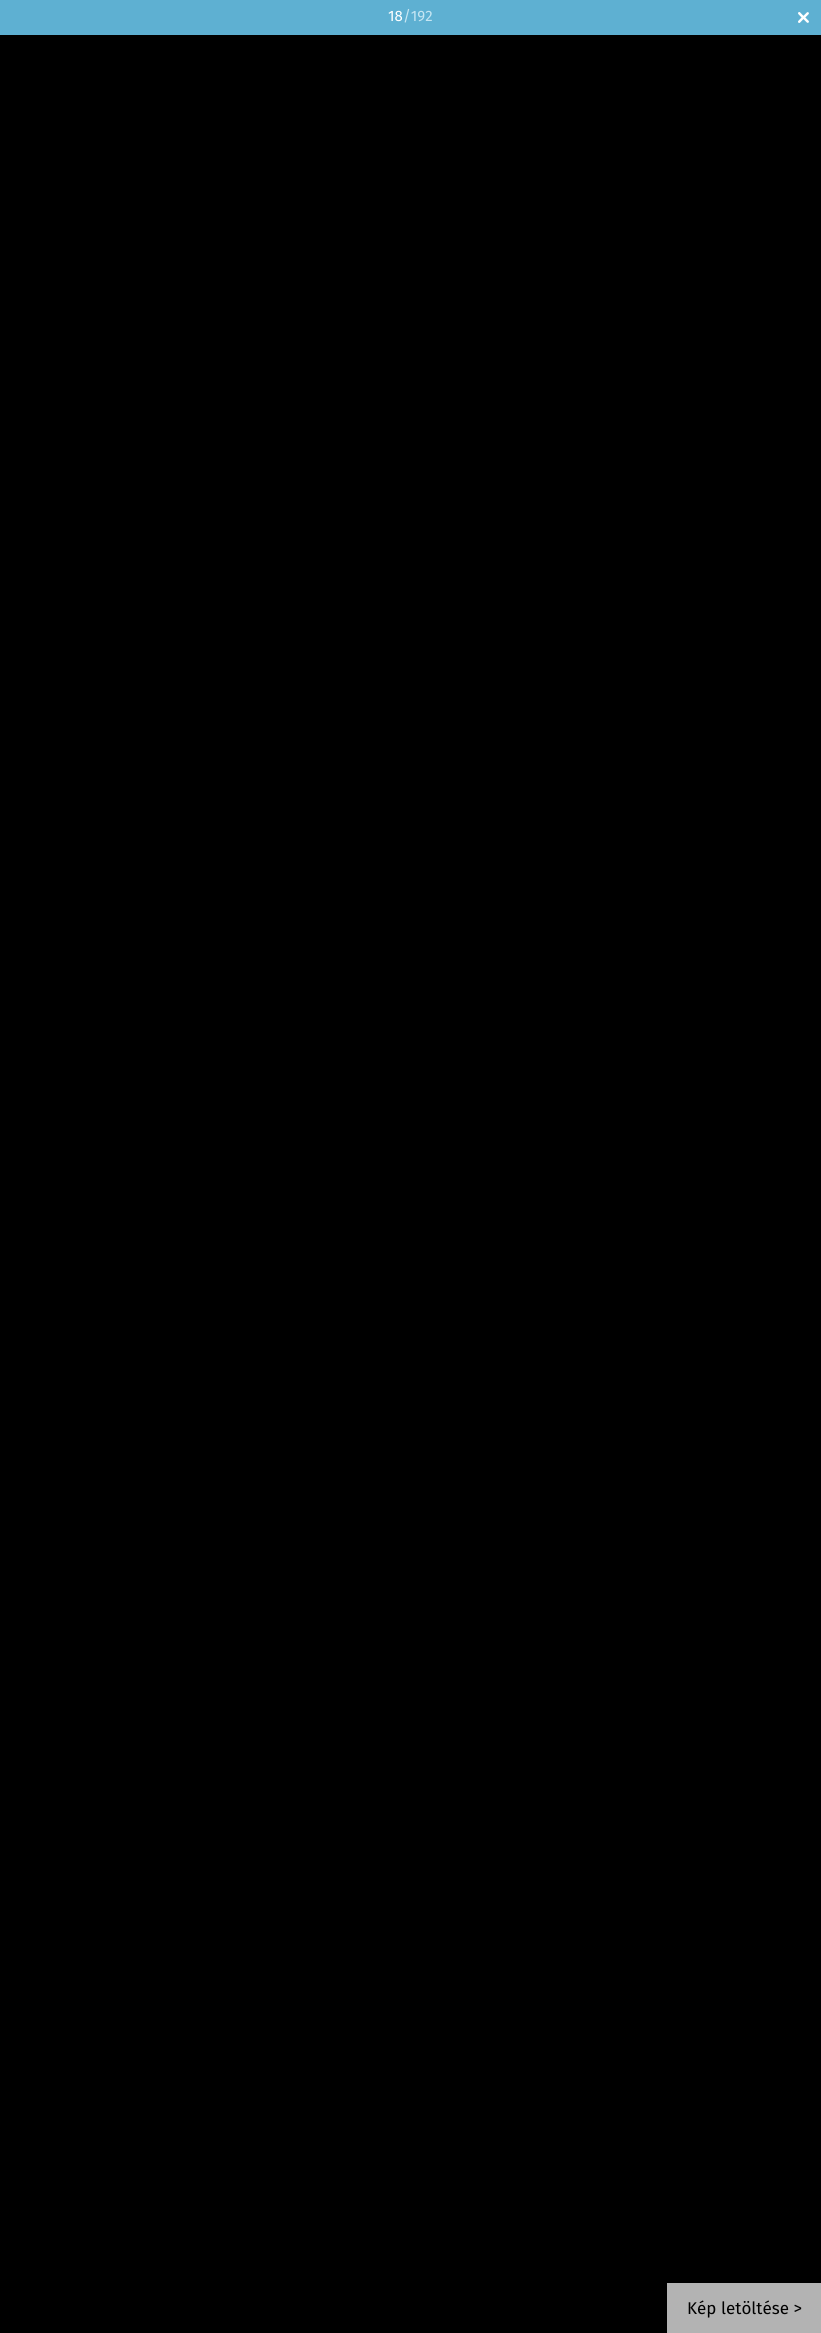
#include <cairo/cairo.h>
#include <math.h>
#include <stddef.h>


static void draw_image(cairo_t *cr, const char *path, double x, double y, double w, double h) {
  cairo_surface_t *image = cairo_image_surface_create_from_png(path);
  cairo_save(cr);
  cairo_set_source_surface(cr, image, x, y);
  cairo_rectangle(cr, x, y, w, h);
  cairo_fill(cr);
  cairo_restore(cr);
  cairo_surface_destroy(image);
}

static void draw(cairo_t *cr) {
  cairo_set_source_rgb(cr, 0, 0, 0);
  cairo_paint(cr);
  cairo_set_source_rgb(cr, 94 / 255.0, 176 / 255.0, 210 / 255.0);
  cairo_rectangle(cr, 0, 0, 821, 35);
  cairo_fill(cr);
  draw_image(cr, "images/1.png", 798, 12, 11, 11);
  cairo_set_source_rgb(cr, 179 / 255.0, 179 / 255.0, 179 / 255.0);
  cairo_rectangle(cr, 667, 2283, 154, 50);
  cairo_fill(cr);
  cairo_select_font_face(cr, "Fira Sans", CAIRO_FONT_SLANT_NORMAL, CAIRO_FONT_WEIGHT_NORMAL);
  cairo_set_font_size(cr, 15);
  cairo_set_source_rgb(cr, 1, 1, 1);
  cairo_move_to(cr, 388, 21);
  cairo_show_text(cr, "18");
  cairo_set_source_rgb(cr, 198 / 255.0, 230 / 255.0, 243 / 255.0);
  cairo_move_to(cr, 403, 21);
  cairo_show_text(cr, "/192");
  cairo_set_font_size(cr, 17);
  cairo_set_source_rgb(cr, 0, 0, 0);
  cairo_move_to(cr, 687, 2314);
  cairo_show_text(cr, "Kép letöltése >");
}

int main(void) {
  cairo_surface_t *surface = cairo_image_surface_create(CAIRO_FORMAT_RGB24, 821, 2333);
  cairo_t *cr = cairo_create(surface);
  cairo_font_options_t *options = cairo_font_options_create();
  cairo_font_options_set_hint_metrics(options, CAIRO_HINT_METRICS_OFF);
  cairo_font_options_set_hint_style(options, CAIRO_HINT_STYLE_NONE);
  cairo_set_font_options(cr, options);
  cairo_set_miter_limit(cr, 4);
  draw(cr);
  cairo_surface_write_to_png(surface, "out.png");
  cairo_font_options_destroy(options);
  cairo_destroy(cr);
  cairo_surface_destroy(surface);
  return 0;
}
